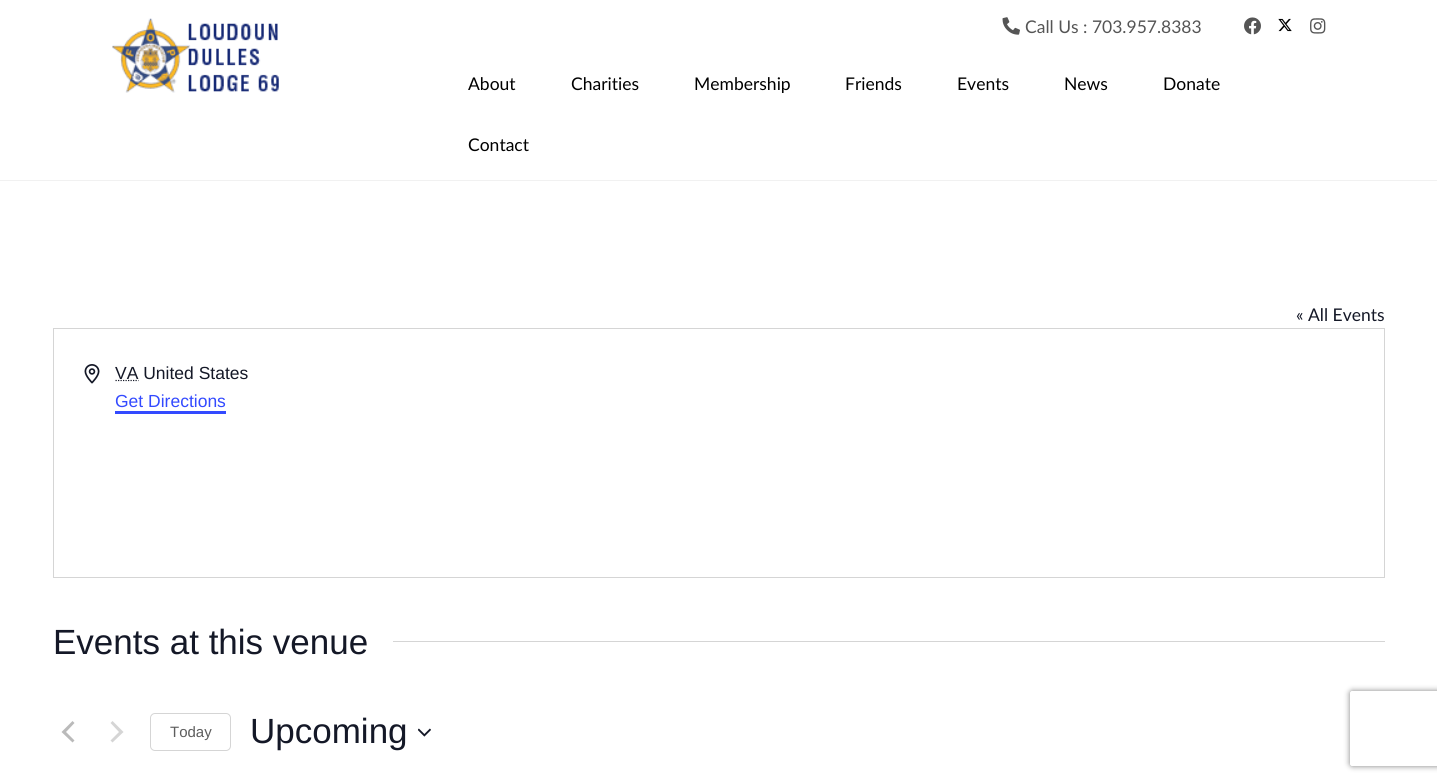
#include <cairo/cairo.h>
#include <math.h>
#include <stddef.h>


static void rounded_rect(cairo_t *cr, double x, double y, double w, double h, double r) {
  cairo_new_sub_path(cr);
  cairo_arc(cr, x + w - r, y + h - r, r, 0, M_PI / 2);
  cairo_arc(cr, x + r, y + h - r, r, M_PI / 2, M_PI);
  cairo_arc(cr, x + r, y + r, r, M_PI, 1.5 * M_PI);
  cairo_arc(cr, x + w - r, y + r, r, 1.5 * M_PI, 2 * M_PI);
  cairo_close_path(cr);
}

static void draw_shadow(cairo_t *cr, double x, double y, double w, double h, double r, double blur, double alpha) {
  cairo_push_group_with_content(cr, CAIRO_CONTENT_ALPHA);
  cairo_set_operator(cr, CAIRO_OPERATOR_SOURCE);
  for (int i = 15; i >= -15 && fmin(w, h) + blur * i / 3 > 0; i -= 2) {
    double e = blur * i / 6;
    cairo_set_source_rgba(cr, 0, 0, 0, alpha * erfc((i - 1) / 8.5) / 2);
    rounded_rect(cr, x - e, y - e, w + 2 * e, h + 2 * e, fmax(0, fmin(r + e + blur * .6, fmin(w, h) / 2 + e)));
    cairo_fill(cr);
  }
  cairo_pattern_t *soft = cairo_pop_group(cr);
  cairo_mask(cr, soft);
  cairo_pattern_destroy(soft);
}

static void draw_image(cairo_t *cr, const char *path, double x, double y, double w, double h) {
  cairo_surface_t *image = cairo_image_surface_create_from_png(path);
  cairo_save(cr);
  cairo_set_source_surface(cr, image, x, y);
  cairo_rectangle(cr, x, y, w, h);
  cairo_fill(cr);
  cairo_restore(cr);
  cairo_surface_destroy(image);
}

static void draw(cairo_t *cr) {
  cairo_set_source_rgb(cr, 1, 1, 1);
  cairo_paint(cr);
  cairo_set_source_rgb(cr, 241 / 255.0, 241 / 255.0, 241 / 255.0);
  cairo_rectangle(cr, 0, 180, 1437, 1);
  cairo_fill(cr);
  draw_image(cr, "images/1.png", 112, 18, 167, 75);
  draw_image(cr, "images/2.png", 1002, 17, 18, 18);
  draw_image(cr, "images/3.png", 1244, 17, 17, 18);
  draw_image(cr, "images/4.png", 1278, 18, 14, 14);
  draw_image(cr, "images/5.png", 1310, 18, 16, 16);
  cairo_rectangle(cr, 53.5, 328.5, 1331, 249);
  cairo_set_source_rgb(cr, 213 / 255.0, 213 / 255.0, 213 / 255.0);
  cairo_set_line_width(cr, 1);
  cairo_stroke(cr);
  draw_image(cr, "images/6.png", 84, 364, 16, 20);
  cairo_new_path(cr);
  cairo_move_to(cr, 115.5, 380.5);
  cairo_line_to(cr, 138.5, 380.5);
  cairo_set_source_rgb(cr, 20 / 255.0, 24 / 255.0, 39 / 255.0);
  cairo_set_line_width(cr, 1.2);
  cairo_set_dash(cr, (double[]){1.25, 1.25}, 2, 0);
  cairo_stroke(cr);
  cairo_set_source_rgb(cr, 51 / 255.0, 74 / 255.0, 1);
  cairo_rectangle(cr, 115, 411, 111, 3);
  cairo_fill(cr);
  cairo_set_source_rgb(cr, 213 / 255.0, 213 / 255.0, 213 / 255.0);
  cairo_rectangle(cr, 393, 641, 992, 1);
  cairo_fill(cr);
  cairo_set_source_rgb(cr, 186 / 255.0, 186 / 255.0, 186 / 255.0);
  cairo_new_path(cr);
  cairo_move_to(cr, 74.5, 740.5);
  cairo_line_to(cr, 72.5, 742.5);
  cairo_line_to(cr, 61.5, 732);
  cairo_line_to(cr, 72.5, 721);
  cairo_line_to(cr, 74.5, 723);
  cairo_line_to(cr, 66, 732);
  cairo_close_path(cr);
  cairo_fill(cr);
  cairo_set_source_rgb(cr, 213 / 255.0, 213 / 255.0, 213 / 255.0);
  cairo_new_path(cr);
  cairo_move_to(cr, 110.5, 723);
  cairo_line_to(cr, 112.5, 721);
  cairo_line_to(cr, 123.5, 732);
  cairo_line_to(cr, 112.5, 742.5);
  cairo_line_to(cr, 110.5, 740.5);
  cairo_line_to(cr, 119, 732);
  cairo_close_path(cr);
  cairo_fill(cr);
  rounded_rect(cr, 150.5, 713.5, 80, 37, 4.5);
  cairo_set_line_width(cr, 1);
  cairo_set_dash(cr, NULL, 0, 0);
  cairo_stroke(cr);
  draw_image(cr, "images/7.png", 418, 728, 13, 9);
  cairo_save(cr);
  cairo_set_fill_rule(cr, CAIRO_FILL_RULE_EVEN_ODD);
  cairo_new_path(cr);
  cairo_move_to(cr, 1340, 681);
  cairo_line_to(cr, 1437, 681);
  cairo_line_to(cr, 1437, 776);
  cairo_line_to(cr, 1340, 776);
  cairo_close_path(cr);
  cairo_move_to(cr, 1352.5, 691);
  cairo_line_to(cr, 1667.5, 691);
  cairo_curve_to(cr, 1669, 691, 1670, 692, 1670, 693.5);
  cairo_line_to(cr, 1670, 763.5);
  cairo_curve_to(cr, 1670, 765, 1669, 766, 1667.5, 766);
  cairo_line_to(cr, 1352.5, 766);
  cairo_curve_to(cr, 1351, 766, 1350, 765, 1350, 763.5);
  cairo_line_to(cr, 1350, 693.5);
  cairo_curve_to(cr, 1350, 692, 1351, 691, 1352.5, 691);
  cairo_close_path(cr);
  cairo_clip(cr);
  cairo_set_source_rgb(cr, 128 / 255.0, 128 / 255.0, 128 / 255.0);
  draw_shadow(cr, 1350, 691, 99, 75, 2.5, 3, 1);
  cairo_restore(cr);
  cairo_select_font_face(cr, "Lato", CAIRO_FONT_SLANT_NORMAL, CAIRO_FONT_WEIGHT_NORMAL);
  cairo_set_font_size(cr, 17.5);
  cairo_set_source_rgb(cr, 85 / 255.0, 85 / 255.0, 85 / 255.0);
  cairo_move_to(cr, 1025, 33);
  cairo_show_text(cr, "Call Us : 703.957.8383");
  cairo_set_source_rgb(cr, 0, 0, 0);
  cairo_move_to(cr, 468, 90);
  cairo_show_text(cr, "About");
  cairo_move_to(cr, 571, 90);
  cairo_show_text(cr, "Charities");
  cairo_move_to(cr, 694, 90);
  cairo_show_text(cr, "Membership");
  cairo_move_to(cr, 845, 90);
  cairo_show_text(cr, "Friends");
  cairo_move_to(cr, 957, 90);
  cairo_show_text(cr, "Events");
  cairo_move_to(cr, 1064, 90);
  cairo_show_text(cr, "News");
  cairo_move_to(cr, 1163, 90);
  cairo_show_text(cr, "Donate");
  cairo_move_to(cr, 468, 151);
  cairo_show_text(cr, "Contact");
  cairo_set_source_rgb(cr, 20 / 255.0, 24 / 255.0, 39 / 255.0);
  cairo_move_to(cr, 1296, 321);
  cairo_show_text(cr, "« All Events");
  cairo_select_font_face(cr, "Liberation Sans", CAIRO_FONT_SLANT_NORMAL, CAIRO_FONT_WEIGHT_NORMAL);
  cairo_move_to(cr, 115, 379);
  cairo_show_text(cr, "VA United States");
  cairo_set_source_rgb(cr, 51 / 255.0, 74 / 255.0, 1);
  cairo_move_to(cr, 115, 407);
  cairo_show_text(cr, "Get Directions");
  cairo_set_font_size(cr, 35);
  cairo_set_source_rgb(cr, 20 / 255.0, 24 / 255.0, 39 / 255.0);
  cairo_move_to(cr, 53, 654);
  cairo_show_text(cr, "Events at this venue");
  cairo_set_font_size(cr, 15);
  cairo_set_source_rgb(cr, 93 / 255.0, 93 / 255.0, 93 / 255.0);
  cairo_move_to(cr, 170, 737);
  cairo_show_text(cr, "Today");
  cairo_set_font_size(cr, 35);
  cairo_set_source_rgb(cr, 20 / 255.0, 24 / 255.0, 39 / 255.0);
  cairo_move_to(cr, 250, 743);
  cairo_show_text(cr, "Upcoming");
}

int main(void) {
  cairo_surface_t *surface = cairo_image_surface_create(CAIRO_FORMAT_RGB24, 1437, 783);
  cairo_t *cr = cairo_create(surface);
  cairo_font_options_t *options = cairo_font_options_create();
  cairo_font_options_set_hint_metrics(options, CAIRO_HINT_METRICS_OFF);
  cairo_font_options_set_hint_style(options, CAIRO_HINT_STYLE_NONE);
  cairo_set_font_options(cr, options);
  cairo_set_miter_limit(cr, 4);
  draw(cr);
  cairo_surface_write_to_png(surface, "out.png");
  cairo_font_options_destroy(options);
  cairo_destroy(cr);
  cairo_surface_destroy(surface);
  return 0;
}
